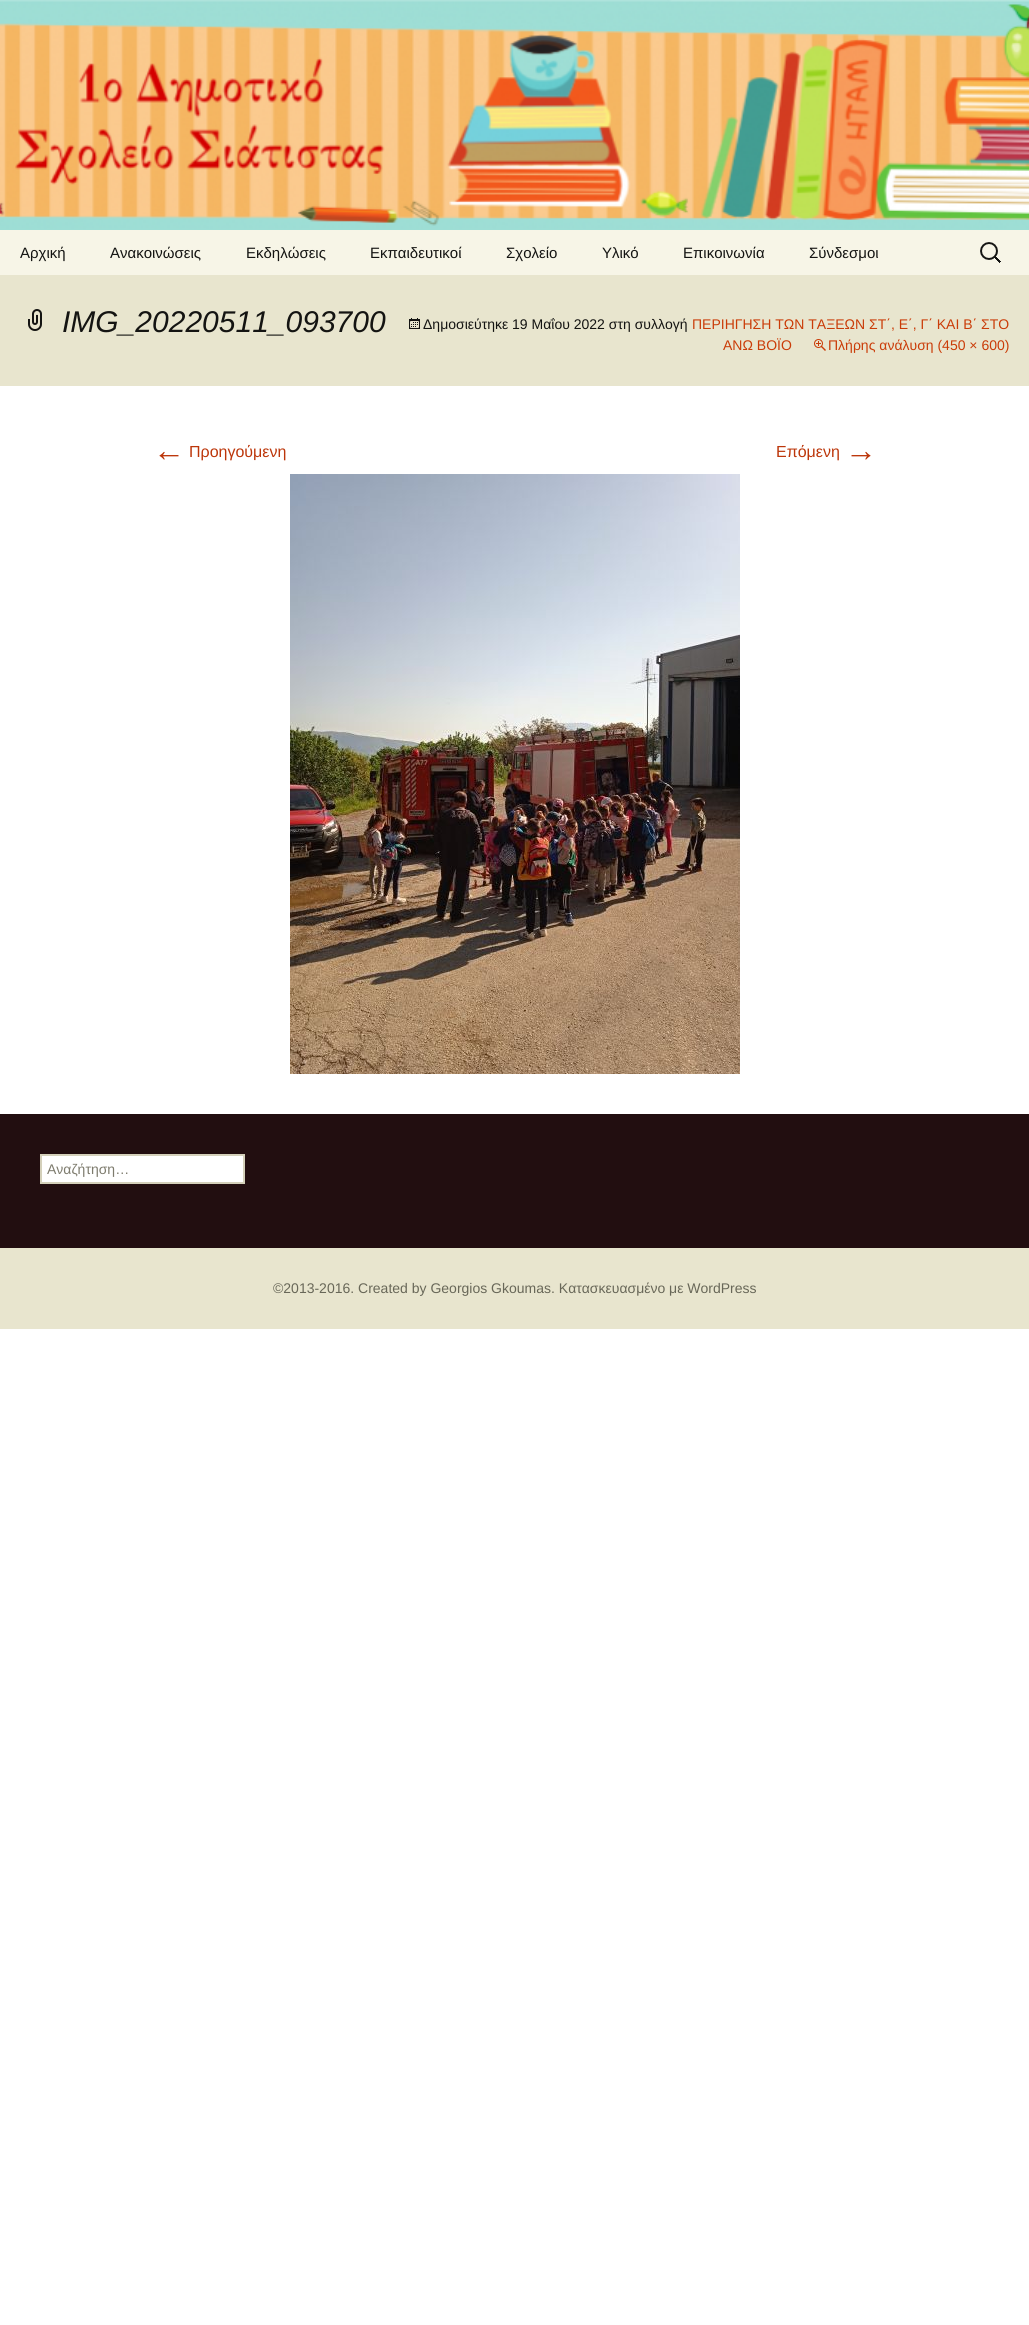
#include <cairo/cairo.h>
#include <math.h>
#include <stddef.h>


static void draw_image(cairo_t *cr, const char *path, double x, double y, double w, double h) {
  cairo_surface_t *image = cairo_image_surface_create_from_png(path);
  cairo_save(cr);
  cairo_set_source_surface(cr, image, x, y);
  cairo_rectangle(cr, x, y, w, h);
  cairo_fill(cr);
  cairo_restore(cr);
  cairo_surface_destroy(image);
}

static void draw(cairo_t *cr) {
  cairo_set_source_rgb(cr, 1, 1, 1);
  cairo_paint(cr);
  draw_image(cr, "images/1.png", 0, 0, 1029, 230);
  cairo_set_source_rgb(cr, 247 / 255.0, 245 / 255.0, 231 / 255.0);
  cairo_rectangle(cr, 0, 230, 1029, 45);
  cairo_fill(cr);
  draw_image(cr, "images/2.png", 980, 242, 21, 21);
  cairo_set_source_rgb(cr, 232 / 255.0, 229 / 255.0, 206 / 255.0);
  cairo_rectangle(cr, 0, 275, 1029, 111);
  cairo_fill(cr);
  draw_image(cr, "images/3.png", 28, 309, 14, 22);
  draw_image(cr, "images/4.png", 409, 318, 11, 11);
  draw_image(cr, "images/5.png", 814, 339, 12, 12);
  draw_image(cr, "images/6.png", 290, 474, 450, 600);
  cairo_rectangle(cr, 0, 1248, 1029, 81);
  cairo_fill(cr);
  cairo_set_source_rgb(cr, 34 / 255.0, 14 / 255.0, 16 / 255.0);
  cairo_rectangle(cr, 0, 1114, 1029, 134);
  cairo_fill(cr);
  cairo_set_source_rgb(cr, 1, 1, 1);
  cairo_rectangle(cr, 41, 1155, 203, 28);
  cairo_fill_preserve(cr);
  cairo_set_source_rgb(cr, 212 / 255.0, 208 / 255.0, 186 / 255.0);
  cairo_stroke(cr);
  cairo_select_font_face(cr, "Liberation Sans", CAIRO_FONT_SLANT_NORMAL, CAIRO_FONT_WEIGHT_NORMAL);
  cairo_set_font_size(cr, 15);
  cairo_set_source_rgb(cr, 20 / 255.0, 20 / 255.0, 18 / 255.0);
  cairo_move_to(cr, 20, 258);
  cairo_show_text(cr, "Αρχική");
  cairo_move_to(cr, 110, 258);
  cairo_show_text(cr, "Ανακοινώσεις");
  cairo_move_to(cr, 246, 258);
  cairo_show_text(cr, "Εκδηλώσεις");
  cairo_move_to(cr, 370, 258);
  cairo_show_text(cr, "Εκπαιδευτικοί");
  cairo_move_to(cr, 506, 258);
  cairo_show_text(cr, "Σχολείο");
  cairo_move_to(cr, 602, 258);
  cairo_show_text(cr, "Υλικό");
  cairo_move_to(cr, 683, 258);
  cairo_show_text(cr, "Επικοινωνία");
  cairo_move_to(cr, 809, 258);
  cairo_show_text(cr, "Σύνδεσμοι");
  cairo_select_font_face(cr, "Liberation Sans", CAIRO_FONT_SLANT_ITALIC, CAIRO_FONT_WEIGHT_NORMAL);
  cairo_set_font_size(cr, 30);
  cairo_move_to(cr, 62, 332);
  cairo_show_text(cr, "IMG_20220511_093700");
  cairo_select_font_face(cr, "Liberation Sans", CAIRO_FONT_SLANT_NORMAL, CAIRO_FONT_WEIGHT_NORMAL);
  cairo_set_font_size(cr, 14);
  cairo_move_to(cr, 423, 329);
  cairo_show_text(cr, "Δημοσιεύτηκε 19 Μαΐου 2022 στη συλλογή");
  cairo_set_source_rgb(cr, 202 / 255.0, 60 / 255.0, 8 / 255.0);
  cairo_move_to(cr, 692, 329);
  cairo_show_text(cr, "ΠΕΡΙΗΓΗΣΗ ΤΩΝ ΤΑΞΕΩΝ ΣΤ΄, Ε΄, Γ΄ ΚΑΙ Β΄ ΣΤΟ");
  cairo_move_to(cr, 723, 350);
  cairo_show_text(cr, "ΑΝΩ ΒΟΪΟ");
  cairo_move_to(cr, 828, 350);
  cairo_show_text(cr, "Πλήρης ανάλυση (450 × 600)");
  cairo_set_font_size(cr, 32);
  cairo_set_source_rgb(cr, 188 / 255.0, 54 / 255.0, 10 / 255.0);
  cairo_move_to(cr, 153, 461);
  cairo_show_text(cr, "←");
  cairo_set_font_size(cr, 16);
  cairo_move_to(cr, 189, 457);
  cairo_show_text(cr, "Προηγούμενη");
  cairo_move_to(cr, 776, 457);
  cairo_show_text(cr, "Επόμενη");
  cairo_set_font_size(cr, 32);
  cairo_move_to(cr, 845, 461);
  cairo_show_text(cr, "→");
  cairo_set_font_size(cr, 14);
  cairo_set_source_rgb(cr, 125 / 255.0, 123 / 255.0, 109 / 255.0);
  cairo_move_to(cr, 47, 1174);
  cairo_show_text(cr, "Αναζήτηση…");
  cairo_set_source_rgb(cr, 104 / 255.0, 103 / 255.0, 88 / 255.0);
  cairo_move_to(cr, 273, 1293);
  cairo_show_text(cr, "©2013-2016. Created by Georgios Gkoumas. Κατασκευασμένο με WordPress");
}

int main(void) {
  cairo_surface_t *surface = cairo_image_surface_create(CAIRO_FORMAT_RGB24, 1029, 2325);
  cairo_t *cr = cairo_create(surface);
  cairo_font_options_t *options = cairo_font_options_create();
  cairo_font_options_set_hint_metrics(options, CAIRO_HINT_METRICS_OFF);
  cairo_font_options_set_hint_style(options, CAIRO_HINT_STYLE_NONE);
  cairo_set_font_options(cr, options);
  cairo_set_miter_limit(cr, 4);
  draw(cr);
  cairo_surface_write_to_png(surface, "out.png");
  cairo_font_options_destroy(options);
  cairo_destroy(cr);
  cairo_surface_destroy(surface);
  return 0;
}
